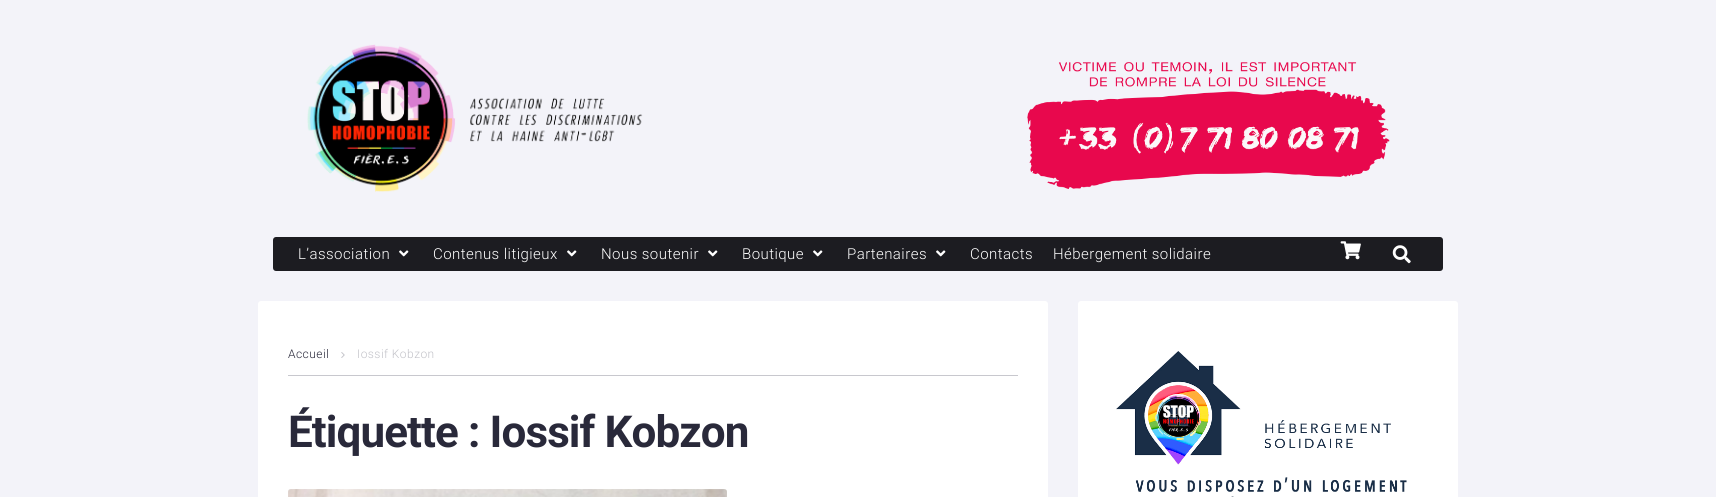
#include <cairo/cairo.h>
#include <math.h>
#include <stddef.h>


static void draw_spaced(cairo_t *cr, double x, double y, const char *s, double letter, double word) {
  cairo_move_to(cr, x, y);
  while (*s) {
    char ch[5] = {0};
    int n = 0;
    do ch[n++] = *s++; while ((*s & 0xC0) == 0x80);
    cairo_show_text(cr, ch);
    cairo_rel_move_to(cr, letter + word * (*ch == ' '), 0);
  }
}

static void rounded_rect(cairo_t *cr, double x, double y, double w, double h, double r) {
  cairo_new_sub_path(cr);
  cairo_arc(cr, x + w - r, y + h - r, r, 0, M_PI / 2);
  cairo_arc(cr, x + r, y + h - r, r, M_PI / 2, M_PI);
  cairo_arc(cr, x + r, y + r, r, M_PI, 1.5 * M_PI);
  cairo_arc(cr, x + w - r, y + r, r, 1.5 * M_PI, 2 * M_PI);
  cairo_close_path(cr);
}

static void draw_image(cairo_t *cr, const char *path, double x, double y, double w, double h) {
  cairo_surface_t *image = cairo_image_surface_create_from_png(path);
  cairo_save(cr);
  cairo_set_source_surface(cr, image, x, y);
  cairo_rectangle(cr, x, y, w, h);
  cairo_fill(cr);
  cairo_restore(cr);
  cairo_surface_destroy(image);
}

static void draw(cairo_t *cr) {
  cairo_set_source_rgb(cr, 243 / 255.0, 243 / 255.0, 249 / 255.0);
  cairo_paint(cr);
  draw_image(cr, "images/1.png", 307, 44, 336, 148);
  draw_image(cr, "images/2.png", 1027, 62, 363, 127);
  cairo_set_source_rgb(cr, 28 / 255.0, 28 / 255.0, 33 / 255.0);
  rounded_rect(cr, 273, 237, 1170, 34, 3);
  cairo_fill(cr);
  draw_image(cr, "images/3.png", 399, 250, 10, 7);
  draw_image(cr, "images/3.png", 567, 250, 10, 7);
  draw_image(cr, "images/3.png", 708, 250, 10, 7);
  draw_image(cr, "images/3.png", 813, 250, 10, 7);
  draw_image(cr, "images/3.png", 936, 250, 10, 7);
  draw_image(cr, "images/4.png", 1340, 241, 21, 19);
  draw_image(cr, "images/5.png", 1392, 245, 19, 19);
  cairo_set_source_rgb(cr, 1, 1, 1);
  rounded_rect(cr, 258, 301, 790, 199, 3);
  cairo_fill(cr);
  cairo_set_source_rgb(cr, 200 / 255.0, 200 / 255.0, 206 / 255.0);
  cairo_rectangle(cr, 288, 375, 730, 1);
  cairo_fill(cr);
  draw_image(cr, "images/6.png", 341, 352, 4, 6);
  draw_image(cr, "images/7.png", 288, 489, 439, 8);
  cairo_set_source_rgb(cr, 1, 1, 1);
  rounded_rect(cr, 1078, 301, 380, 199, 3);
  cairo_fill(cr);
  draw_image(cr, "images/8.png", 1116, 351, 291, 146);
  cairo_select_font_face(cr, "Roboto Light", CAIRO_FONT_SLANT_NORMAL, CAIRO_FONT_WEIGHT_NORMAL);
  cairo_set_font_size(cr, 15);
  draw_spaced(cr, 298, 259, "L’association", 0.45, 0);
  draw_spaced(cr, 433, 259, "Contenus litigieux", 0.45, 0);
  draw_spaced(cr, 601, 259, "Nous soutenir", 0.45, 0);
  draw_spaced(cr, 742, 259, "Boutique", 0.45, 0);
  draw_spaced(cr, 847, 259, "Partenaires", 0.45, 0);
  draw_spaced(cr, 970, 259, "Contacts", 0.45, 0);
  draw_spaced(cr, 1053, 259, "Hébergement solidaire", 0.45, 0);
  cairo_set_font_size(cr, 12);
  cairo_set_source_rgb(cr, 41 / 255.0, 41 / 255.0, 58 / 255.0);
  draw_spaced(cr, 288, 358, "Accueil", 0.45, 0);
  cairo_set_source_rgb(cr, 195 / 255.0, 195 / 255.0, 201 / 255.0);
  draw_spaced(cr, 357, 358, "Iossif Kobzon", 0.45, 0);
  cairo_select_font_face(cr, "Roboto", CAIRO_FONT_SLANT_NORMAL, CAIRO_FONT_WEIGHT_BOLD);
  cairo_set_font_size(cr, 44);
  cairo_set_source_rgb(cr, 41 / 255.0, 41 / 255.0, 58 / 255.0);
  draw_spaced(cr, 288, 447, "Étiquette : Iossif Kobzon", -0.9, 0);
}

int main(void) {
  cairo_surface_t *surface = cairo_image_surface_create(CAIRO_FORMAT_RGB24, 1716, 497);
  cairo_t *cr = cairo_create(surface);
  cairo_font_options_t *options = cairo_font_options_create();
  cairo_font_options_set_hint_metrics(options, CAIRO_HINT_METRICS_OFF);
  cairo_font_options_set_hint_style(options, CAIRO_HINT_STYLE_NONE);
  cairo_set_font_options(cr, options);
  cairo_set_miter_limit(cr, 4);
  draw(cr);
  cairo_surface_write_to_png(surface, "out.png");
  cairo_font_options_destroy(options);
  cairo_destroy(cr);
  cairo_surface_destroy(surface);
  return 0;
}
